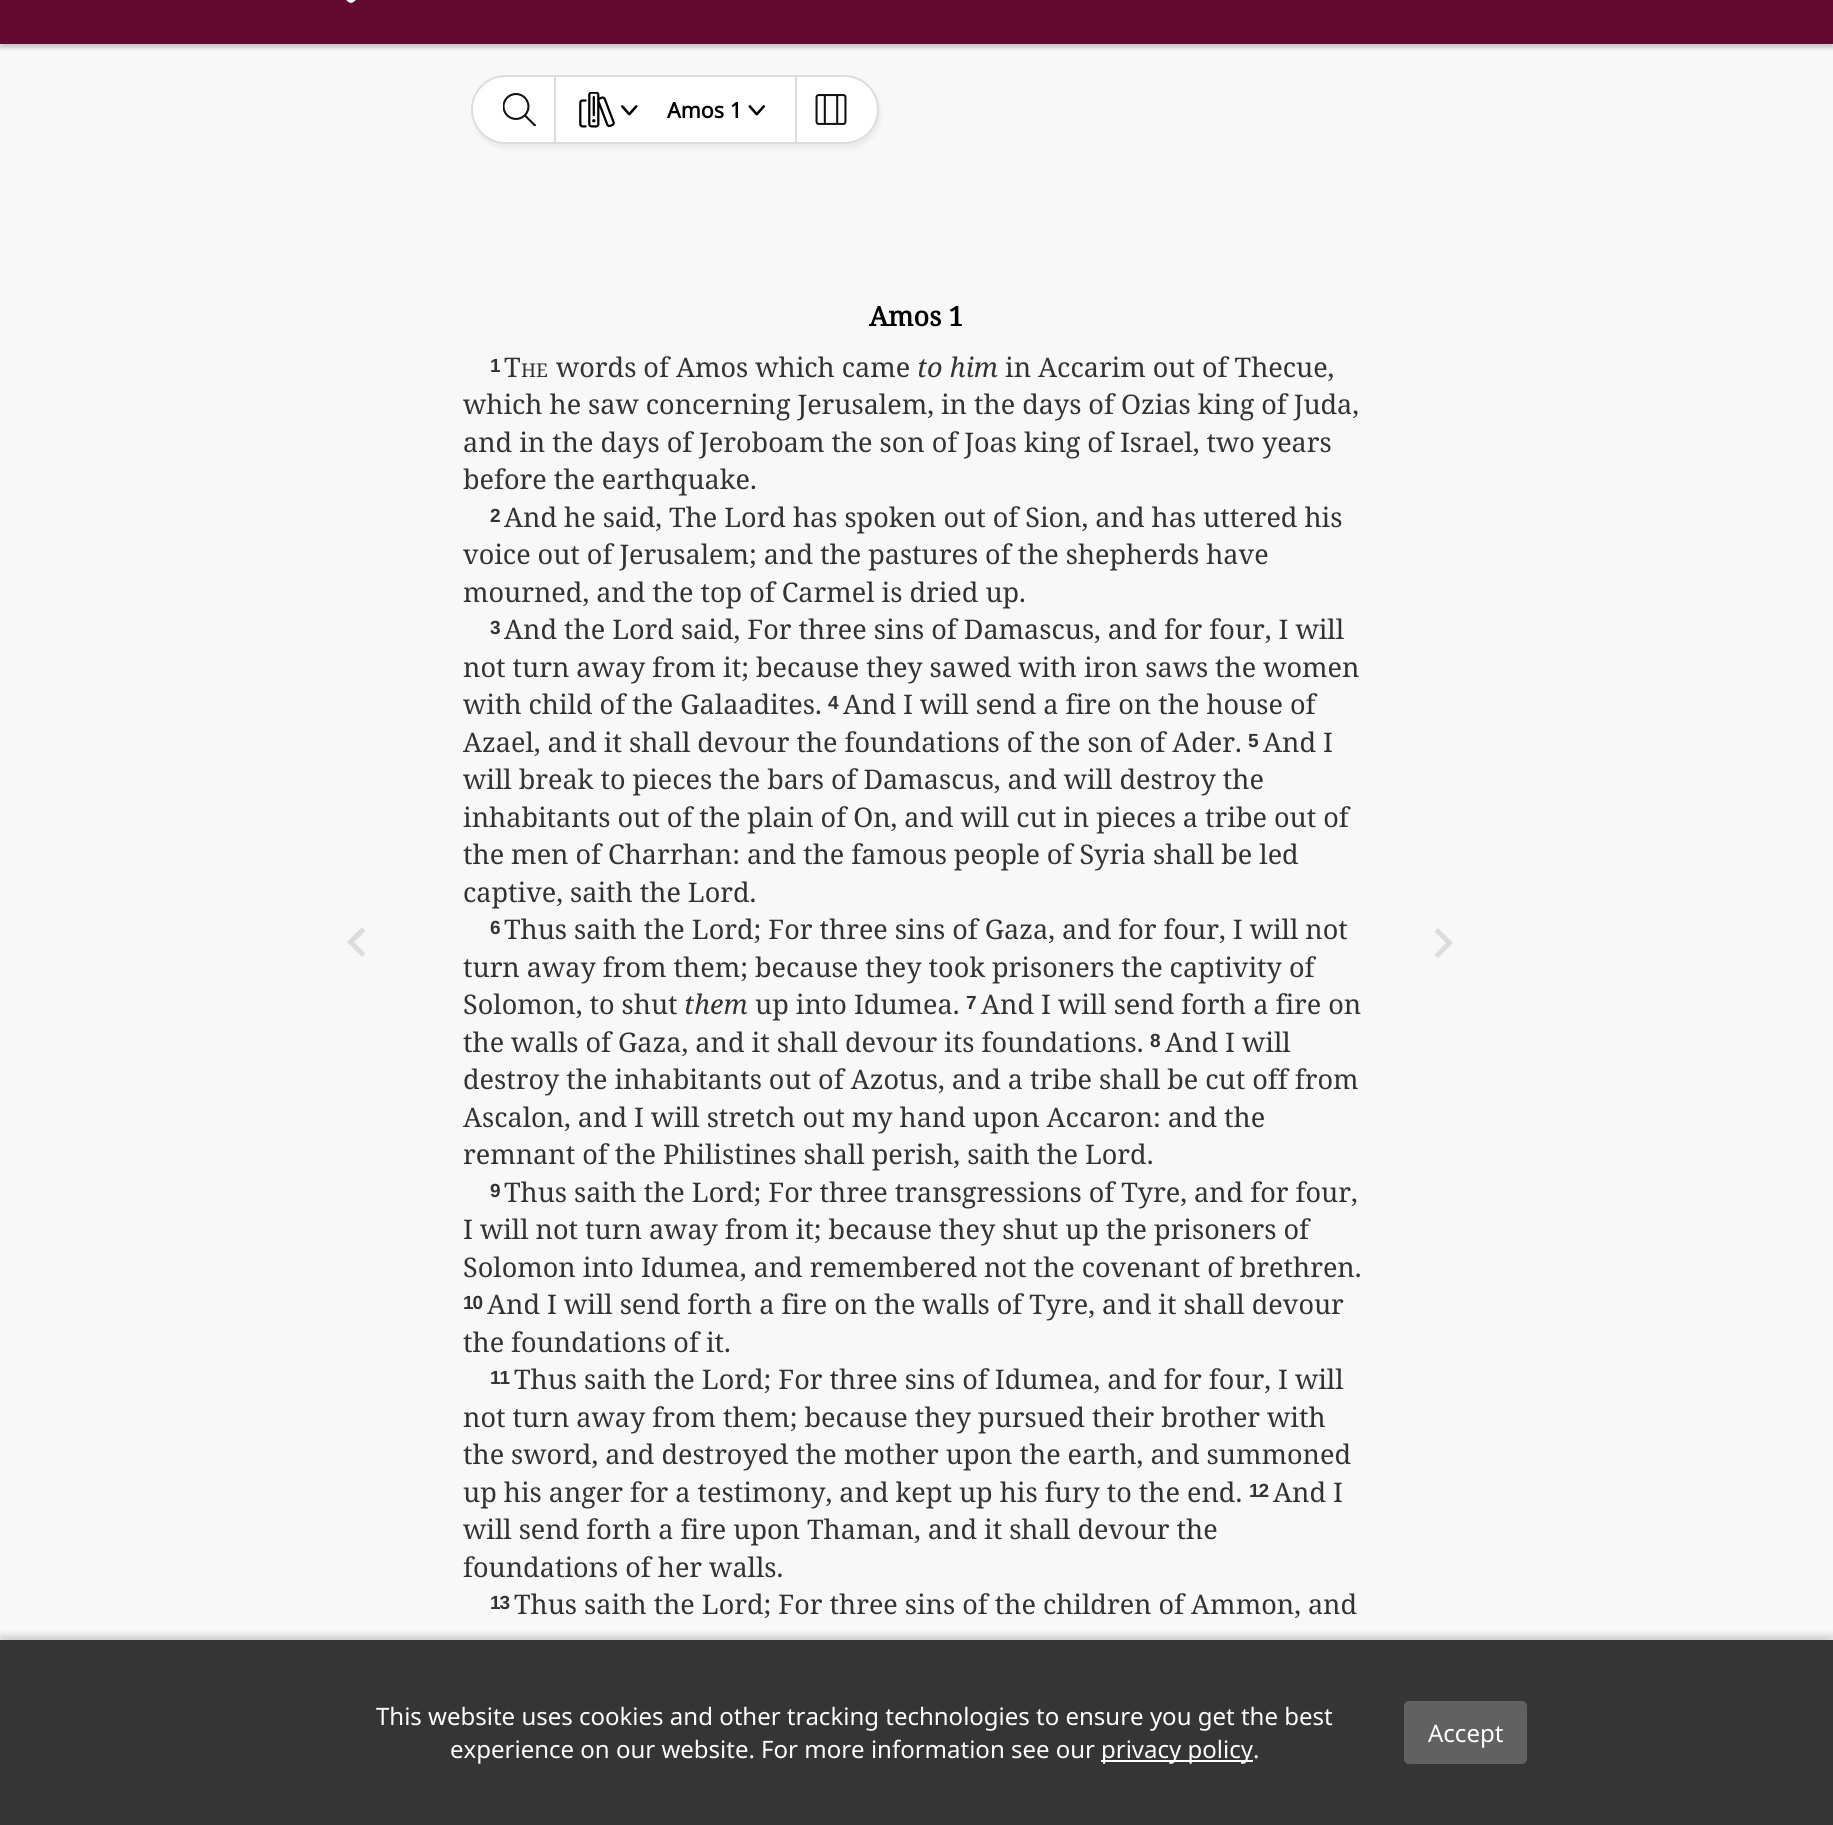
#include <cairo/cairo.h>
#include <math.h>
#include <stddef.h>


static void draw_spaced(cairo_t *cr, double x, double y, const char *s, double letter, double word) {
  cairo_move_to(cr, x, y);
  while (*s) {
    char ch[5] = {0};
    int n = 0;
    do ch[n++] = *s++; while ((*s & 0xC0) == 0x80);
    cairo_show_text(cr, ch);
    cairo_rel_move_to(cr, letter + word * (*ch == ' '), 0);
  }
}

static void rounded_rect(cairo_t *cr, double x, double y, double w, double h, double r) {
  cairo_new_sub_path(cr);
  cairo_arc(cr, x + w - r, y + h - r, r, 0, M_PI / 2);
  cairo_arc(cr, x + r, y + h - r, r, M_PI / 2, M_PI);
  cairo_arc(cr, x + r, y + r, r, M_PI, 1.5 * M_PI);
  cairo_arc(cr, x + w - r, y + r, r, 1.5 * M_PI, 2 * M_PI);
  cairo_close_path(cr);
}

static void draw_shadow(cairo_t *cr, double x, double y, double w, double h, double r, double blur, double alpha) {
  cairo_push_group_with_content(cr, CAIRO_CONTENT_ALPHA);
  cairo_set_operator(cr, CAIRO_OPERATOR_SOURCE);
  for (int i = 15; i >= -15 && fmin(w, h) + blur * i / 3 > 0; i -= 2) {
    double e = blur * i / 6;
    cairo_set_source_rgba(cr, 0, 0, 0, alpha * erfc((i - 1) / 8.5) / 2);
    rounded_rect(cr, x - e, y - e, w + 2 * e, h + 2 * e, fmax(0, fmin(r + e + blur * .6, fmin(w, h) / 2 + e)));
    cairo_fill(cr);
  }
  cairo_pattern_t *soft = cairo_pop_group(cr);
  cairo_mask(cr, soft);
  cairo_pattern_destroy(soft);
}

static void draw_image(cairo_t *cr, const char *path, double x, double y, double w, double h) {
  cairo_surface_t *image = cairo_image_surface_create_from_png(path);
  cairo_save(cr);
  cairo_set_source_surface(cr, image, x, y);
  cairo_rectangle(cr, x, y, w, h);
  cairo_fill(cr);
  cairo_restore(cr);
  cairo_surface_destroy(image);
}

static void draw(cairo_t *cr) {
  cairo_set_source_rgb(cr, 248 / 255.0, 248 / 255.0, 248 / 255.0);
  cairo_paint(cr);
  cairo_set_source_rgb(cr, 0, 0, 0);
  draw_shadow(cr, 0, -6, 1833, 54, 0, 2, 0.2);
  cairo_set_source_rgb(cr, 97 / 255.0, 9 / 255.0, 47 / 255.0);
  cairo_rectangle(cr, 0, 0, 1833, 44);
  cairo_fill(cr);
  draw_image(cr, "images/1.png", 346, 0, 10, 3);
  cairo_set_source_rgb(cr, 0, 0, 0);
  draw_shadow(cr, 473, 80, 408, 69, 34.5, 2, 0.05);
  cairo_set_source_rgb(cr, 1, 1, 1);
  rounded_rect(cr, 472, 76, 406, 67, 33.5);
  cairo_fill_preserve(cr);
  cairo_set_source_rgb(cr, 220 / 255.0, 220 / 255.0, 220 / 255.0);
  cairo_stroke(cr);
  cairo_rectangle(cr, 554, 77, 2, 66);
  cairo_fill(cr);
  draw_image(cr, "images/2.png", 503, 93, 33, 33);
  draw_image(cr, "images/3.png", 579, 92, 36, 36);
  draw_image(cr, "images/4.png", 621, 105, 17, 11);
  draw_image(cr, "images/5.png", 748, 105, 17, 11);
  cairo_rectangle(cr, 795, 77, 2, 66);
  cairo_fill(cr);
  draw_image(cr, "images/6.png", 815, 94, 32, 31);
  cairo_new_path(cr);
  cairo_move_to(cr, 365.5, 953.5);
  cairo_line_to(cr, 354, 942);
  cairo_line_to(cr, 365.5, 931);
  cairo_line_to(cr, 362, 927);
  cairo_line_to(cr, 347, 942);
  cairo_line_to(cr, 362, 957);
  cairo_close_path(cr);
  cairo_fill(cr);
  cairo_new_path(cr);
  cairo_move_to(cr, 1434.5, 954.5);
  cairo_line_to(cr, 1446, 943);
  cairo_line_to(cr, 1434.5, 931.5);
  cairo_line_to(cr, 1438, 928);
  cairo_line_to(cr, 1453, 943);
  cairo_line_to(cr, 1438, 958);
  cairo_close_path(cr);
  cairo_fill(cr);
  cairo_set_source_rgb(cr, 0, 0, 0);
  draw_shadow(cr, 0, 1635, 1833, 186, 0, 3, 0.15);
  cairo_set_source_rgb(cr, 53 / 255.0, 53 / 255.0, 53 / 255.0);
  cairo_rectangle(cr, 0, 1640, 1833, 185);
  cairo_fill(cr);
  cairo_set_source_rgb(cr, 1, 1, 1);
  cairo_rectangle(cr, 1101, 1760, 152, 2);
  cairo_fill(cr);
  cairo_set_source_rgb(cr, 97 / 255.0, 97 / 255.0, 97 / 255.0);
  rounded_rect(cr, 1404, 1701, 123, 63, 5);
  cairo_fill(cr);
  cairo_select_font_face(cr, "Noto Sans", CAIRO_FONT_SLANT_NORMAL, CAIRO_FONT_WEIGHT_BOLD);
  cairo_set_font_size(cr, 21.5);
  cairo_set_source_rgb(cr, 0, 0, 0);
  cairo_move_to(cr, 667, 118);
  cairo_show_text(cr, "Amos 1");
  cairo_select_font_face(cr, "Noto Serif", CAIRO_FONT_SLANT_NORMAL, CAIRO_FONT_WEIGHT_BOLD);
  cairo_set_font_size(cr, 27);
  cairo_move_to(cr, 869, 326);
  cairo_show_text(cr, "Amos 1");
  cairo_select_font_face(cr, "Liberation Sans", CAIRO_FONT_SLANT_NORMAL, CAIRO_FONT_WEIGHT_BOLD);
  cairo_set_font_size(cr, 19);
  cairo_set_source_rgb(cr, 51 / 255.0, 51 / 255.0, 51 / 255.0);
  draw_spaced(cr, 490, 372, "1", -1, 0);
  cairo_select_font_face(cr, "Noto Serif", CAIRO_FONT_SLANT_NORMAL, CAIRO_FONT_WEIGHT_NORMAL);
  cairo_set_font_size(cr, 27);
  cairo_move_to(cr, 504, 377);
  cairo_show_text(cr, "T");
  cairo_set_font_size(cr, 19);
  cairo_move_to(cr, 521, 377);
  cairo_show_text(cr, "HE");
  cairo_set_font_size(cr, 27);
  cairo_move_to(cr, 556, 377);
  cairo_show_text(cr, "words of Amos which came");
  cairo_select_font_face(cr, "Noto Serif", CAIRO_FONT_SLANT_ITALIC, CAIRO_FONT_WEIGHT_NORMAL);
  cairo_move_to(cr, 917, 377);
  cairo_show_text(cr, "to him");
  cairo_select_font_face(cr, "Noto Serif", CAIRO_FONT_SLANT_NORMAL, CAIRO_FONT_WEIGHT_NORMAL);
  cairo_move_to(cr, 1005, 377);
  cairo_show_text(cr, "in Accarim out of Thecue,");
  cairo_move_to(cr, 463, 414);
  cairo_show_text(cr, "which he saw concerning Jerusalem, in the days of Ozias king of Juda,");
  cairo_move_to(cr, 463, 452);
  cairo_show_text(cr, "and in the days of Jeroboam the son of Joas king of Israel, two years");
  cairo_move_to(cr, 463, 489);
  cairo_show_text(cr, "before the earthquake.");
  cairo_select_font_face(cr, "Liberation Sans", CAIRO_FONT_SLANT_NORMAL, CAIRO_FONT_WEIGHT_BOLD);
  cairo_set_font_size(cr, 19);
  draw_spaced(cr, 490, 522, "2", -1, 0);
  cairo_select_font_face(cr, "Noto Serif", CAIRO_FONT_SLANT_NORMAL, CAIRO_FONT_WEIGHT_NORMAL);
  cairo_set_font_size(cr, 27);
  cairo_move_to(cr, 504, 527);
  cairo_show_text(cr, "And he said, The Lord has spoken out of Sion, and has uttered his");
  cairo_move_to(cr, 463, 564);
  cairo_show_text(cr, "voice out of Jerusalem; and the pastures of the shepherds have");
  cairo_move_to(cr, 463, 602);
  cairo_show_text(cr, "mourned, and the top of Carmel is dried up.");
  cairo_select_font_face(cr, "Liberation Sans", CAIRO_FONT_SLANT_NORMAL, CAIRO_FONT_WEIGHT_BOLD);
  cairo_set_font_size(cr, 19);
  draw_spaced(cr, 490, 634, "3", -1, 0);
  cairo_select_font_face(cr, "Noto Serif", CAIRO_FONT_SLANT_NORMAL, CAIRO_FONT_WEIGHT_NORMAL);
  cairo_set_font_size(cr, 27);
  cairo_move_to(cr, 504, 639);
  cairo_show_text(cr, "And the Lord said, For three sins of Damascus, and for four, I will");
  cairo_move_to(cr, 463, 677);
  cairo_show_text(cr, "not turn away from it; because they sawed with iron saws the women");
  cairo_move_to(cr, 463, 714);
  cairo_show_text(cr, "with child of the Galaadites.");
  cairo_select_font_face(cr, "Liberation Sans", CAIRO_FONT_SLANT_NORMAL, CAIRO_FONT_WEIGHT_BOLD);
  cairo_set_font_size(cr, 19);
  draw_spaced(cr, 828, 709, "4", -1, 0);
  cairo_select_font_face(cr, "Noto Serif", CAIRO_FONT_SLANT_NORMAL, CAIRO_FONT_WEIGHT_NORMAL);
  cairo_set_font_size(cr, 27);
  cairo_move_to(cr, 843, 714);
  cairo_show_text(cr, "And I will send a fire on the house of");
  cairo_move_to(cr, 463, 752);
  cairo_show_text(cr, "Azael, and it shall devour the foundations of the son of Ader.");
  cairo_select_font_face(cr, "Liberation Sans", CAIRO_FONT_SLANT_NORMAL, CAIRO_FONT_WEIGHT_BOLD);
  cairo_set_font_size(cr, 19);
  draw_spaced(cr, 1248, 747, "5", -1, 0);
  cairo_select_font_face(cr, "Noto Serif", CAIRO_FONT_SLANT_NORMAL, CAIRO_FONT_WEIGHT_NORMAL);
  cairo_set_font_size(cr, 27);
  cairo_move_to(cr, 1263, 752);
  cairo_show_text(cr, "And I");
  cairo_move_to(cr, 463, 789);
  cairo_show_text(cr, "will break to pieces the bars of Damascus, and will destroy the");
  cairo_move_to(cr, 463, 827);
  cairo_show_text(cr, "inhabitants out of the plain of On, and will cut in pieces a tribe out of");
  cairo_move_to(cr, 463, 864);
  cairo_show_text(cr, "the men of Charrhan: and the famous people of Syria shall be led");
  cairo_move_to(cr, 463, 902);
  cairo_show_text(cr, "captive, saith the Lord.");
  cairo_select_font_face(cr, "Liberation Sans", CAIRO_FONT_SLANT_NORMAL, CAIRO_FONT_WEIGHT_BOLD);
  cairo_set_font_size(cr, 19);
  draw_spaced(cr, 490, 934, "6", -1, 0);
  cairo_select_font_face(cr, "Noto Serif", CAIRO_FONT_SLANT_NORMAL, CAIRO_FONT_WEIGHT_NORMAL);
  cairo_set_font_size(cr, 27);
  cairo_move_to(cr, 504, 939);
  cairo_show_text(cr, "Thus saith the Lord; For three sins of Gaza, and for four, I will not");
  cairo_move_to(cr, 463, 977);
  cairo_show_text(cr, "turn away from them; because they took prisoners the captivity of");
  cairo_move_to(cr, 463, 1014);
  cairo_show_text(cr, "Solomon, to shut");
  cairo_select_font_face(cr, "Noto Serif", CAIRO_FONT_SLANT_ITALIC, CAIRO_FONT_WEIGHT_NORMAL);
  cairo_move_to(cr, 684, 1014);
  cairo_show_text(cr, "them");
  cairo_select_font_face(cr, "Noto Serif", CAIRO_FONT_SLANT_NORMAL, CAIRO_FONT_WEIGHT_NORMAL);
  cairo_move_to(cr, 755, 1014);
  cairo_show_text(cr, "up into Idumea.");
  cairo_select_font_face(cr, "Liberation Sans", CAIRO_FONT_SLANT_NORMAL, CAIRO_FONT_WEIGHT_BOLD);
  cairo_set_font_size(cr, 19);
  draw_spaced(cr, 966, 1009, "7", -1, 0);
  cairo_select_font_face(cr, "Noto Serif", CAIRO_FONT_SLANT_NORMAL, CAIRO_FONT_WEIGHT_NORMAL);
  cairo_set_font_size(cr, 27);
  cairo_move_to(cr, 981, 1014);
  cairo_show_text(cr, "And I will send forth a fire on");
  cairo_move_to(cr, 463, 1052);
  cairo_show_text(cr, "the walls of Gaza, and it shall devour its foundations.");
  cairo_select_font_face(cr, "Liberation Sans", CAIRO_FONT_SLANT_NORMAL, CAIRO_FONT_WEIGHT_BOLD);
  cairo_set_font_size(cr, 19);
  draw_spaced(cr, 1150, 1047, "8", -1, 0);
  cairo_select_font_face(cr, "Noto Serif", CAIRO_FONT_SLANT_NORMAL, CAIRO_FONT_WEIGHT_NORMAL);
  cairo_set_font_size(cr, 27);
  cairo_move_to(cr, 1165, 1052);
  cairo_show_text(cr, "And I will");
  cairo_move_to(cr, 463, 1089);
  cairo_show_text(cr, "destroy the inhabitants out of Azotus, and a tribe shall be cut off from");
  cairo_move_to(cr, 463, 1127);
  cairo_show_text(cr, "Ascalon, and I will stretch out my hand upon Accaron: and the");
  cairo_move_to(cr, 463, 1164);
  cairo_show_text(cr, "remnant of the Philistines shall perish, saith the Lord.");
  cairo_select_font_face(cr, "Liberation Sans", CAIRO_FONT_SLANT_NORMAL, CAIRO_FONT_WEIGHT_BOLD);
  cairo_set_font_size(cr, 19);
  draw_spaced(cr, 490, 1197, "9", -1, 0);
  cairo_select_font_face(cr, "Noto Serif", CAIRO_FONT_SLANT_NORMAL, CAIRO_FONT_WEIGHT_NORMAL);
  cairo_set_font_size(cr, 27);
  cairo_move_to(cr, 504, 1202);
  cairo_show_text(cr, "Thus saith the Lord; For three transgressions of Tyre, and for four,");
  cairo_move_to(cr, 463, 1239);
  cairo_show_text(cr, "I will not turn away from it; because they shut up the prisoners of");
  cairo_move_to(cr, 463, 1277);
  cairo_show_text(cr, "Solomon into Idumea, and remembered not the covenant of brethren.");
  cairo_select_font_face(cr, "Liberation Sans", CAIRO_FONT_SLANT_NORMAL, CAIRO_FONT_WEIGHT_BOLD);
  cairo_set_font_size(cr, 19);
  draw_spaced(cr, 463, 1309, "10", -1, 0);
  cairo_select_font_face(cr, "Noto Serif", CAIRO_FONT_SLANT_NORMAL, CAIRO_FONT_WEIGHT_NORMAL);
  cairo_set_font_size(cr, 27);
  cairo_move_to(cr, 487, 1314);
  cairo_show_text(cr, "And I will send forth a fire on the walls of Tyre, and it shall devour");
  cairo_move_to(cr, 463, 1352);
  cairo_show_text(cr, "the foundations of it.");
  cairo_select_font_face(cr, "Liberation Sans", CAIRO_FONT_SLANT_NORMAL, CAIRO_FONT_WEIGHT_BOLD);
  cairo_set_font_size(cr, 19);
  draw_spaced(cr, 490, 1384, "11", -1, 0);
  cairo_select_font_face(cr, "Noto Serif", CAIRO_FONT_SLANT_NORMAL, CAIRO_FONT_WEIGHT_NORMAL);
  cairo_set_font_size(cr, 27);
  cairo_move_to(cr, 514, 1389);
  cairo_show_text(cr, "Thus saith the Lord; For three sins of Idumea, and for four, I will");
  cairo_move_to(cr, 463, 1427);
  cairo_show_text(cr, "not turn away from them; because they pursued their brother with");
  cairo_move_to(cr, 463, 1464);
  cairo_show_text(cr, "the sword, and destroyed the mother upon the earth, and summoned");
  cairo_move_to(cr, 463, 1502);
  cairo_show_text(cr, "up his anger for a testimony, and kept up his fury to the end.");
  cairo_select_font_face(cr, "Liberation Sans", CAIRO_FONT_SLANT_NORMAL, CAIRO_FONT_WEIGHT_BOLD);
  cairo_set_font_size(cr, 19);
  draw_spaced(cr, 1249, 1497, "12", -1, 0);
  cairo_select_font_face(cr, "Noto Serif", CAIRO_FONT_SLANT_NORMAL, CAIRO_FONT_WEIGHT_NORMAL);
  cairo_set_font_size(cr, 27);
  cairo_move_to(cr, 1273, 1502);
  cairo_show_text(cr, "And I");
  cairo_move_to(cr, 463, 1539);
  cairo_show_text(cr, "will send forth a fire upon Thaman, and it shall devour the");
  cairo_move_to(cr, 463, 1577);
  cairo_show_text(cr, "foundations of her walls.");
  cairo_select_font_face(cr, "Liberation Sans", CAIRO_FONT_SLANT_NORMAL, CAIRO_FONT_WEIGHT_BOLD);
  cairo_set_font_size(cr, 19);
  draw_spaced(cr, 490, 1609, "13", -1, 0);
  cairo_select_font_face(cr, "Noto Serif", CAIRO_FONT_SLANT_NORMAL, CAIRO_FONT_WEIGHT_NORMAL);
  cairo_set_font_size(cr, 27);
  cairo_move_to(cr, 514, 1614);
  cairo_show_text(cr, "Thus saith the Lord; For three sins of the children of Ammon, and");
  cairo_select_font_face(cr, "Noto Sans", CAIRO_FONT_SLANT_NORMAL, CAIRO_FONT_WEIGHT_NORMAL);
  cairo_set_font_size(cr, 24);
  cairo_set_source_rgb(cr, 1, 1, 1);
  cairo_move_to(cr, 376, 1725);
  cairo_show_text(cr, "This website uses cookies and other tracking technologies to ensure you get the best");
  cairo_move_to(cr, 450, 1758);
  cairo_show_text(cr, "experience on our website. For more information see our");
  cairo_move_to(cr, 1101, 1758);
  cairo_show_text(cr, "privacy policy.");
  cairo_move_to(cr, 1428, 1742);
  cairo_show_text(cr, "Accept");
}

int main(void) {
  cairo_surface_t *surface = cairo_image_surface_create(CAIRO_FORMAT_RGB24, 1833, 1825);
  cairo_t *cr = cairo_create(surface);
  cairo_font_options_t *options = cairo_font_options_create();
  cairo_font_options_set_hint_metrics(options, CAIRO_HINT_METRICS_OFF);
  cairo_font_options_set_hint_style(options, CAIRO_HINT_STYLE_NONE);
  cairo_set_font_options(cr, options);
  cairo_set_miter_limit(cr, 4);
  draw(cr);
  cairo_surface_write_to_png(surface, "out.png");
  cairo_font_options_destroy(options);
  cairo_destroy(cr);
  cairo_surface_destroy(surface);
  return 0;
}
